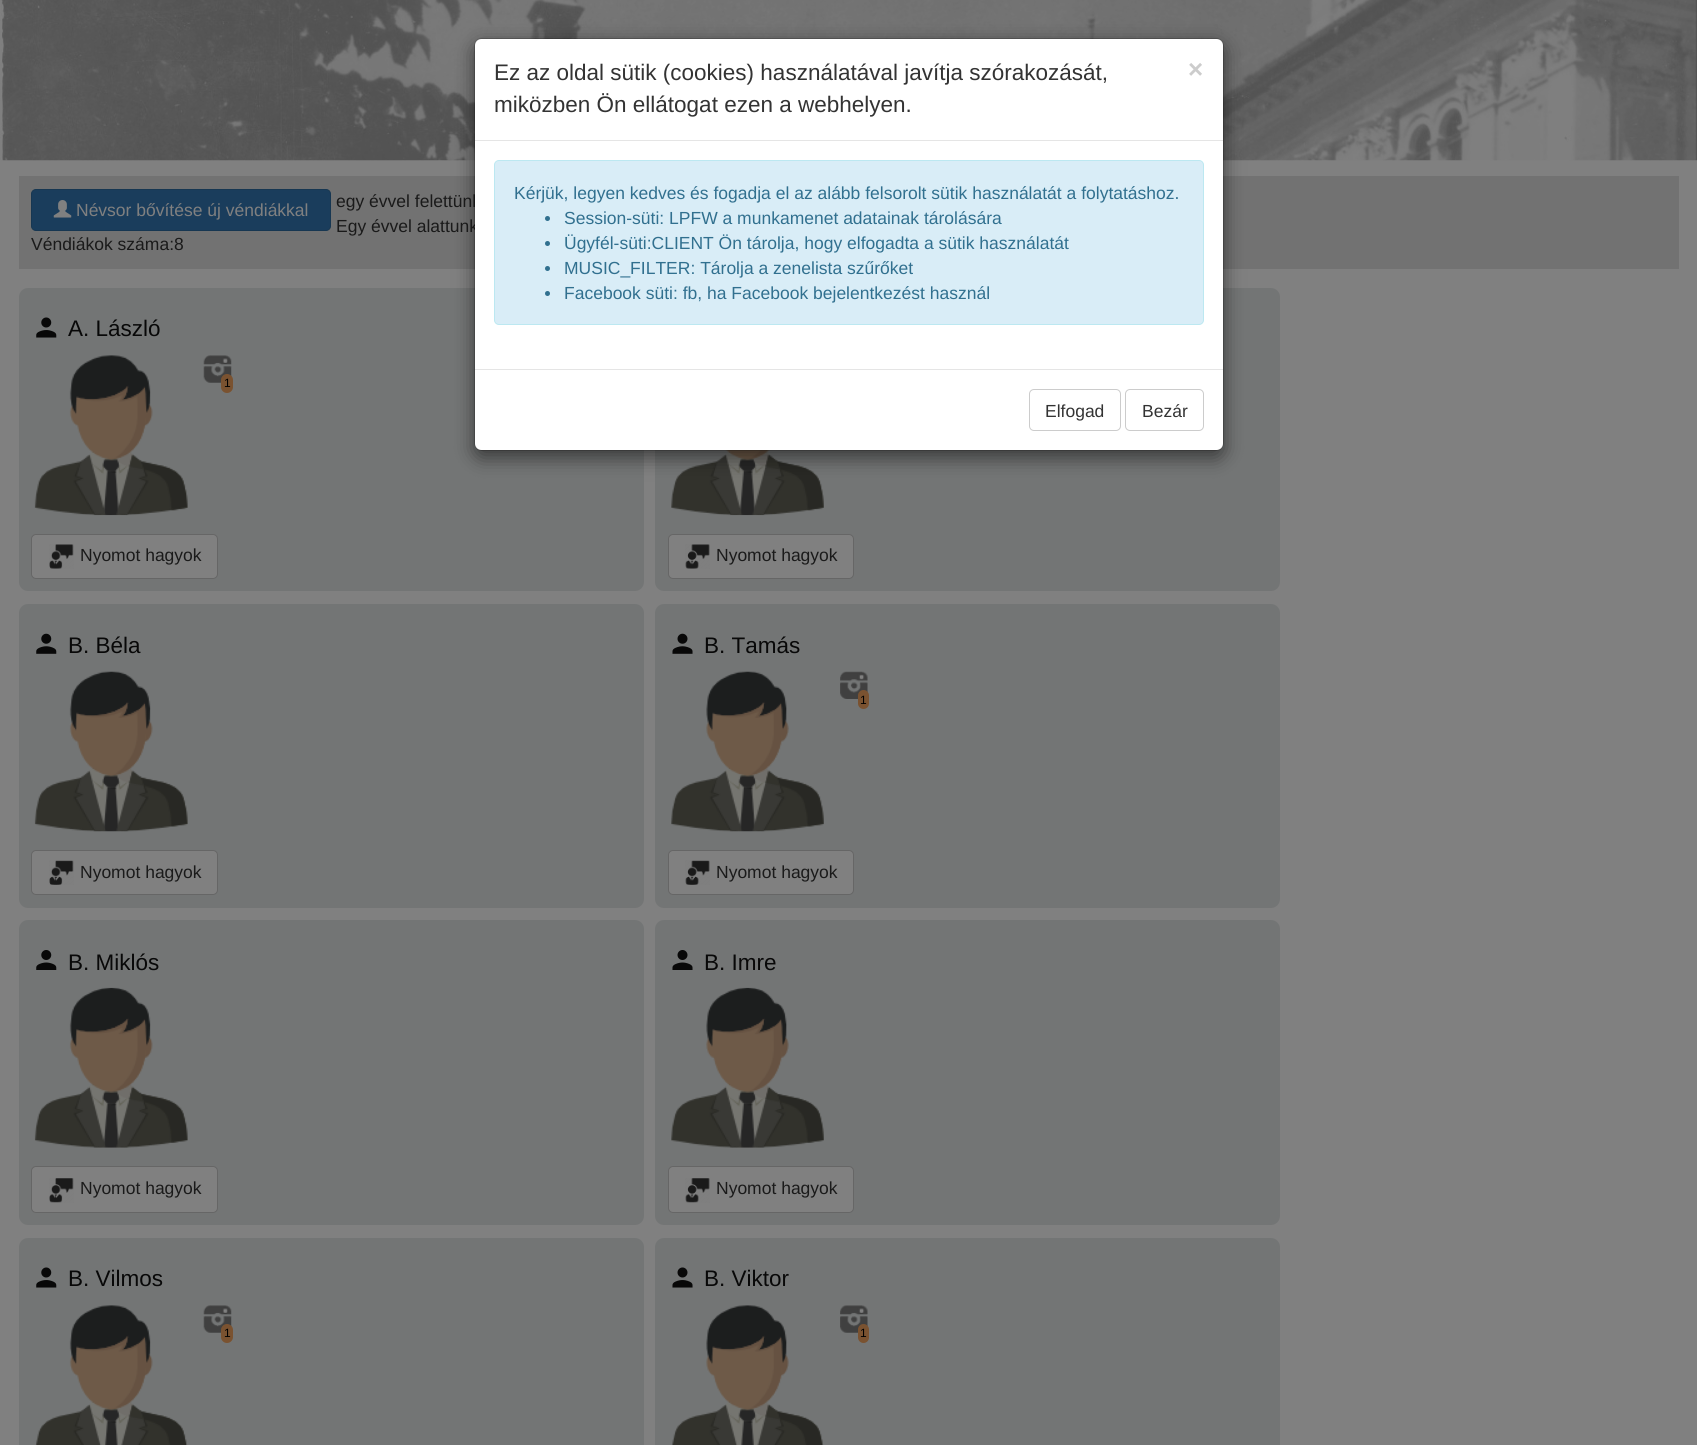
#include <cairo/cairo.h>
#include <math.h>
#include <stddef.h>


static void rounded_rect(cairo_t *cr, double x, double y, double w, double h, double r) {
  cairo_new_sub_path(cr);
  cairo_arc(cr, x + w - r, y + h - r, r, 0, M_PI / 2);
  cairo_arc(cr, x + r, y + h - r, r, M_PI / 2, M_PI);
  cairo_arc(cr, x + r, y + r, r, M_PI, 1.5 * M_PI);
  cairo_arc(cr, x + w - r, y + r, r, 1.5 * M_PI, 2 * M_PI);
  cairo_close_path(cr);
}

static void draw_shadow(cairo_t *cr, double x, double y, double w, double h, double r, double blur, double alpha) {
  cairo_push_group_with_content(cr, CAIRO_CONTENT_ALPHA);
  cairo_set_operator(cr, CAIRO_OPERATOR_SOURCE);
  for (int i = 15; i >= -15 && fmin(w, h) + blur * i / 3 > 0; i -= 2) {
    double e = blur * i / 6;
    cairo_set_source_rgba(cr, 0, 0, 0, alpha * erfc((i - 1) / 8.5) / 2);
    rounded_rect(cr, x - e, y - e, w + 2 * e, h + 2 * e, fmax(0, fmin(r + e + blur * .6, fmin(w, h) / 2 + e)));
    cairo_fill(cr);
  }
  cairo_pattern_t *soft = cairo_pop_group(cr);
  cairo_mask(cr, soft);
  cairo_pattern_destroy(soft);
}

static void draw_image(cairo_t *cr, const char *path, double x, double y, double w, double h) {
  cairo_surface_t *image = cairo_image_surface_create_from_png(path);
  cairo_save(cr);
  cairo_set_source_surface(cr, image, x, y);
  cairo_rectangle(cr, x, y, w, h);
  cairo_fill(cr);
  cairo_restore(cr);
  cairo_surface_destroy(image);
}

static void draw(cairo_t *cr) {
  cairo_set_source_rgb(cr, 128 / 255.0, 128 / 255.0, 128 / 255.0);
  cairo_paint(cr);
  draw_image(cr, "images/1.png", 0, 0, 1697, 161);
  cairo_set_source_rgb(cr, 114 / 255.0, 114 / 255.0, 114 / 255.0);
  cairo_rectangle(cr, 19, 176, 1660, 93);
  cairo_fill(cr);
  cairo_set_source_rgb(cr, 115 / 255.0, 117 / 255.0, 117 / 255.0);
  rounded_rect(cr, 19, 288, 625, 303, 9);
  cairo_fill(cr);
  rounded_rect(cr, 655, 288, 625, 303, 9);
  cairo_fill(cr);
  draw_image(cr, "images/7.png", 671, 450, 153, 66);
  cairo_set_source_rgb(cr, 0, 0, 0);
  draw_shadow(cr, 474, 44, 750, 414, 8, 9.5, 0.5);
  cairo_set_source_rgb(cr, 26 / 255.0, 61 / 255.0, 92 / 255.0);
  rounded_rect(cr, 31.5, 189.5, 299, 41, 4.5);
  cairo_fill_preserve(cr);
  cairo_set_source_rgb(cr, 23 / 255.0, 55 / 255.0, 82 / 255.0);
  cairo_set_line_width(cr, 1);
  cairo_stroke(cr);
  draw_image(cr, "images/2.png", 53, 200, 19, 18);
  draw_image(cr, "images/3.png", 36, 317, 21, 21);
  draw_image(cr, "images/4.png", 34, 355, 154, 161);
  draw_image(cr, "images/5.png", 203, 355, 29, 28);
  cairo_set_source_rgb(cr, 122 / 255.0, 82 / 255.0, 48 / 255.0);
  rounded_rect(cr, 221, 374, 12, 19, 6);
  cairo_fill(cr);
  cairo_set_source_rgb(cr, 128 / 255.0, 128 / 255.0, 128 / 255.0);
  rounded_rect(cr, 31.5, 534.5, 186, 44, 4.5);
  cairo_fill_preserve(cr);
  cairo_set_source_rgb(cr, 102 / 255.0, 102 / 255.0, 102 / 255.0);
  cairo_stroke(cr);
  draw_image(cr, "images/6.png", 49, 544, 25, 25);
  cairo_set_source_rgb(cr, 128 / 255.0, 128 / 255.0, 128 / 255.0);
  rounded_rect(cr, 668.5, 534.5, 185, 44, 4.5);
  cairo_fill_preserve(cr);
  cairo_set_source_rgb(cr, 102 / 255.0, 102 / 255.0, 102 / 255.0);
  cairo_stroke(cr);
  draw_image(cr, "images/8.png", 685, 544, 25, 25);
  cairo_set_source_rgb(cr, 115 / 255.0, 117 / 255.0, 117 / 255.0);
  rounded_rect(cr, 19, 604, 625, 304, 9);
  cairo_fill(cr);
  draw_image(cr, "images/9.png", 36, 633, 21, 21);
  draw_image(cr, "images/10.png", 34, 671, 154, 161);
  cairo_set_source_rgb(cr, 128 / 255.0, 128 / 255.0, 128 / 255.0);
  rounded_rect(cr, 31.5, 850.5, 186, 44, 4.5);
  cairo_fill_preserve(cr);
  cairo_set_source_rgb(cr, 102 / 255.0, 102 / 255.0, 102 / 255.0);
  cairo_stroke(cr);
  draw_image(cr, "images/11.png", 49, 860, 25, 25);
  cairo_set_source_rgb(cr, 115 / 255.0, 117 / 255.0, 117 / 255.0);
  rounded_rect(cr, 655, 604, 625, 304, 9);
  cairo_fill(cr);
  draw_image(cr, "images/12.png", 672, 633, 21, 21);
  draw_image(cr, "images/13.png", 671, 671, 153, 161);
  draw_image(cr, "images/14.png", 840, 671, 28, 28);
  cairo_set_source_rgb(cr, 122 / 255.0, 82 / 255.0, 48 / 255.0);
  rounded_rect(cr, 858, 690, 11, 19, 5.5);
  cairo_fill(cr);
  cairo_set_source_rgb(cr, 128 / 255.0, 128 / 255.0, 128 / 255.0);
  rounded_rect(cr, 668.5, 850.5, 185, 44, 4.5);
  cairo_fill_preserve(cr);
  cairo_set_source_rgb(cr, 102 / 255.0, 102 / 255.0, 102 / 255.0);
  cairo_stroke(cr);
  draw_image(cr, "images/15.png", 685, 860, 25, 25);
  cairo_set_source_rgb(cr, 115 / 255.0, 117 / 255.0, 117 / 255.0);
  rounded_rect(cr, 19, 920, 625, 305, 9);
  cairo_fill(cr);
  draw_image(cr, "images/16.png", 36, 950, 21, 20);
  draw_image(cr, "images/17.png", 34, 987, 154, 161);
  cairo_set_source_rgb(cr, 128 / 255.0, 128 / 255.0, 128 / 255.0);
  rounded_rect(cr, 31.5, 1166.5, 186, 46, 4.5);
  cairo_fill_preserve(cr);
  cairo_set_source_rgb(cr, 102 / 255.0, 102 / 255.0, 102 / 255.0);
  cairo_stroke(cr);
  draw_image(cr, "images/18.png", 49, 1178, 25, 25);
  cairo_set_source_rgb(cr, 115 / 255.0, 117 / 255.0, 117 / 255.0);
  rounded_rect(cr, 655, 920, 625, 305, 9);
  cairo_fill(cr);
  draw_image(cr, "images/19.png", 672, 950, 21, 20);
  draw_image(cr, "images/20.png", 671, 987, 153, 161);
  cairo_set_source_rgb(cr, 128 / 255.0, 128 / 255.0, 128 / 255.0);
  rounded_rect(cr, 668.5, 1166.5, 185, 46, 4.5);
  cairo_fill_preserve(cr);
  cairo_set_source_rgb(cr, 102 / 255.0, 102 / 255.0, 102 / 255.0);
  cairo_stroke(cr);
  draw_image(cr, "images/21.png", 685, 1178, 25, 25);
  cairo_set_source_rgb(cr, 115 / 255.0, 117 / 255.0, 117 / 255.0);
  rounded_rect(cr, 19, 1238, 625, 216, 9);
  cairo_fill(cr);
  draw_image(cr, "images/3.png", 36, 1267, 21, 21);
  draw_image(cr, "images/22.png", 35, 1305, 153, 140);
  draw_image(cr, "images/5.png", 203, 1305, 29, 28);
  cairo_set_source_rgb(cr, 122 / 255.0, 82 / 255.0, 48 / 255.0);
  rounded_rect(cr, 221, 1324, 12, 19, 6);
  cairo_fill(cr);
  cairo_set_source_rgb(cr, 115 / 255.0, 117 / 255.0, 117 / 255.0);
  rounded_rect(cr, 655, 1238, 625, 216, 9);
  cairo_fill(cr);
  draw_image(cr, "images/23.png", 672, 1267, 21, 21);
  draw_image(cr, "images/24.png", 671, 1305, 153, 140);
  draw_image(cr, "images/25.png", 840, 1305, 28, 28);
  cairo_set_source_rgb(cr, 122 / 255.0, 82 / 255.0, 48 / 255.0);
  rounded_rect(cr, 858, 1324, 11, 19, 5.5);
  cairo_fill(cr);
  cairo_select_font_face(cr, "Liberation Sans", CAIRO_FONT_SLANT_NORMAL, CAIRO_FONT_WEIGHT_NORMAL);
  cairo_set_font_size(cr, 17.5);
  cairo_set_source_rgb(cr, 128 / 255.0, 128 / 255.0, 128 / 255.0);
  cairo_move_to(cr, 76, 216);
  cairo_show_text(cr, "Névsor bővítése új véndiákkal");
  cairo_set_source_rgb(cr, 26 / 255.0, 26 / 255.0, 26 / 255.0);
  cairo_move_to(cr, 31, 250);
  cairo_show_text(cr, "Véndiákok száma:8");
  cairo_move_to(cr, 336, 207);
  cairo_show_text(cr, "egy évvel felettünk");
  cairo_move_to(cr, 336, 232);
  cairo_show_text(cr, "Egy évvel alattunk");
  cairo_set_source_rgb(cr, 1, 1, 1);
  rounded_rect(cr, 475, 39, 748, 411, 6);
  cairo_fill(cr);
  rounded_rect(cr, 474.5, 38.5, 749, 412, 7.5);
  cairo_set_source_rgba(cr, 0, 0, 0, 0.2);
  cairo_stroke(cr);
  cairo_set_source_rgb(cr, 217 / 255.0, 237 / 255.0, 247 / 255.0);
  rounded_rect(cr, 494.5, 160.5, 709, 164, 4.5);
  cairo_fill_preserve(cr);
  cairo_set_source_rgb(cr, 188 / 255.0, 232 / 255.0, 241 / 255.0);
  cairo_stroke(cr);
  cairo_set_source_rgb(cr, 49 / 255.0, 112 / 255.0, 143 / 255.0);
  cairo_move_to(cr, 564, 299);
  cairo_show_text(cr, "Facebook süti: fb, ha Facebook bejelentkezést használ");
  cairo_new_path(cr);
  cairo_arc(cr, 547.5, 293.5, 2.5, 0, 2 * M_PI);
  cairo_fill(cr);
  cairo_move_to(cr, 564, 274);
  cairo_show_text(cr, "MUSIC_FILTER: Tárolja a zenelista szűrőket");
  cairo_new_path(cr);
  cairo_arc(cr, 547.5, 268.5, 2.5, 0, 2 * M_PI);
  cairo_fill(cr);
  cairo_move_to(cr, 564, 249);
  cairo_show_text(cr, "Ügyfél-süti:CLIENT Ön tárolja, hogy elfogadta a sütik használatát");
  cairo_new_path(cr);
  cairo_arc(cr, 547.5, 243.5, 2.5, 0, 2 * M_PI);
  cairo_fill(cr);
  cairo_move_to(cr, 564, 224);
  cairo_show_text(cr, "Session-süti: LPFW a munkamenet adatainak tárolására");
  cairo_new_path(cr);
  cairo_arc(cr, 547.5, 218.5, 2.5, 0, 2 * M_PI);
  cairo_fill(cr);
  cairo_move_to(cr, 514, 199);
  cairo_show_text(cr, "Kérjük, legyen kedves és fogadja el az alább felsorolt sütik használatát a folytatáshoz.");
  cairo_select_font_face(cr, "Liberation Sans", CAIRO_FONT_SLANT_NORMAL, CAIRO_FONT_WEIGHT_BOLD);
  cairo_set_font_size(cr, 26);
  cairo_set_source_rgb(cr, 204 / 255.0, 204 / 255.0, 204 / 255.0);
  cairo_move_to(cr, 1188, 78);
  cairo_show_text(cr, "×");
  rounded_rect(cr, 1125.5, 389.5, 78, 41, 4.5);
  cairo_stroke(cr);
  cairo_select_font_face(cr, "Liberation Sans", CAIRO_FONT_SLANT_NORMAL, CAIRO_FONT_WEIGHT_NORMAL);
  cairo_set_font_size(cr, 17.5);
  cairo_set_source_rgb(cr, 51 / 255.0, 51 / 255.0, 51 / 255.0);
  cairo_move_to(cr, 1142, 417);
  cairo_show_text(cr, "Bezár");
  rounded_rect(cr, 1029.5, 389.5, 91, 41, 4.5);
  cairo_set_source_rgb(cr, 204 / 255.0, 204 / 255.0, 204 / 255.0);
  cairo_stroke(cr);
  cairo_set_source_rgb(cr, 51 / 255.0, 51 / 255.0, 51 / 255.0);
  cairo_move_to(cr, 1045, 417);
  cairo_show_text(cr, "Elfogad");
  cairo_set_font_size(cr, 22.5);
  cairo_move_to(cr, 494, 112);
  cairo_show_text(cr, "miközben Ön ellátogat ezen a webhelyen.");
  cairo_move_to(cr, 494, 80);
  cairo_show_text(cr, "Ez az oldal sütik (cookies) használatával javítja szórakozását,");
  cairo_set_source_rgb(cr, 229 / 255.0, 229 / 255.0, 229 / 255.0);
  cairo_rectangle(cr, 475, 369, 748, 1);
  cairo_fill(cr);
  cairo_rectangle(cr, 475, 140, 748, 1);
  cairo_fill(cr);
  cairo_set_source_rgb(cr, 8 / 255.0, 8 / 255.0, 8 / 255.0);
  cairo_move_to(cr, 68, 336);
  cairo_show_text(cr, "A. László");
  cairo_set_font_size(cr, 12);
  cairo_set_source_rgb(cr, 0, 0, 0);
  cairo_move_to(cr, 224, 387);
  cairo_show_text(cr, "1");
  cairo_set_font_size(cr, 17.5);
  cairo_set_source_rgb(cr, 26 / 255.0, 26 / 255.0, 26 / 255.0);
  cairo_move_to(cr, 80, 561);
  cairo_show_text(cr, "Nyomot hagyok");
  cairo_move_to(cr, 716, 561);
  cairo_show_text(cr, "Nyomot hagyok");
  cairo_set_font_size(cr, 22.5);
  cairo_set_source_rgb(cr, 8 / 255.0, 8 / 255.0, 8 / 255.0);
  cairo_move_to(cr, 68, 653);
  cairo_show_text(cr, "B. Béla");
  cairo_set_font_size(cr, 17.5);
  cairo_set_source_rgb(cr, 26 / 255.0, 26 / 255.0, 26 / 255.0);
  cairo_move_to(cr, 80, 878);
  cairo_show_text(cr, "Nyomot hagyok");
  cairo_set_font_size(cr, 22.5);
  cairo_set_source_rgb(cr, 8 / 255.0, 8 / 255.0, 8 / 255.0);
  cairo_move_to(cr, 704, 653);
  cairo_show_text(cr, "B. Tamás");
  cairo_set_font_size(cr, 12);
  cairo_set_source_rgb(cr, 0, 0, 0);
  cairo_move_to(cr, 860, 704);
  cairo_show_text(cr, "1");
  cairo_set_font_size(cr, 17.5);
  cairo_set_source_rgb(cr, 26 / 255.0, 26 / 255.0, 26 / 255.0);
  cairo_move_to(cr, 716, 878);
  cairo_show_text(cr, "Nyomot hagyok");
  cairo_set_font_size(cr, 22.5);
  cairo_set_source_rgb(cr, 8 / 255.0, 8 / 255.0, 8 / 255.0);
  cairo_move_to(cr, 68, 970);
  cairo_show_text(cr, "B. Miklós");
  cairo_set_font_size(cr, 17.5);
  cairo_set_source_rgb(cr, 26 / 255.0, 26 / 255.0, 26 / 255.0);
  cairo_move_to(cr, 80, 1194);
  cairo_show_text(cr, "Nyomot hagyok");
  cairo_set_font_size(cr, 22.5);
  cairo_set_source_rgb(cr, 8 / 255.0, 8 / 255.0, 8 / 255.0);
  cairo_move_to(cr, 704, 970);
  cairo_show_text(cr, "B. Imre");
  cairo_set_font_size(cr, 17.5);
  cairo_set_source_rgb(cr, 26 / 255.0, 26 / 255.0, 26 / 255.0);
  cairo_move_to(cr, 716, 1194);
  cairo_show_text(cr, "Nyomot hagyok");
  cairo_set_font_size(cr, 22.5);
  cairo_set_source_rgb(cr, 8 / 255.0, 8 / 255.0, 8 / 255.0);
  cairo_move_to(cr, 68, 1286);
  cairo_show_text(cr, "B. Vilmos");
  cairo_set_font_size(cr, 12);
  cairo_set_source_rgb(cr, 0, 0, 0);
  cairo_move_to(cr, 224, 1337);
  cairo_show_text(cr, "1");
  cairo_set_font_size(cr, 22.5);
  cairo_set_source_rgb(cr, 8 / 255.0, 8 / 255.0, 8 / 255.0);
  cairo_move_to(cr, 704, 1286);
  cairo_show_text(cr, "B. Viktor");
  cairo_set_font_size(cr, 12);
  cairo_set_source_rgb(cr, 0, 0, 0);
  cairo_move_to(cr, 860, 1337);
  cairo_show_text(cr, "1");
}

int main(void) {
  cairo_surface_t *surface = cairo_image_surface_create(CAIRO_FORMAT_RGB24, 1697, 1445);
  cairo_t *cr = cairo_create(surface);
  cairo_font_options_t *options = cairo_font_options_create();
  cairo_font_options_set_hint_metrics(options, CAIRO_HINT_METRICS_OFF);
  cairo_font_options_set_hint_style(options, CAIRO_HINT_STYLE_NONE);
  cairo_set_font_options(cr, options);
  cairo_set_miter_limit(cr, 4);
  draw(cr);
  cairo_surface_write_to_png(surface, "out.png");
  cairo_font_options_destroy(options);
  cairo_destroy(cr);
  cairo_surface_destroy(surface);
  return 0;
}
